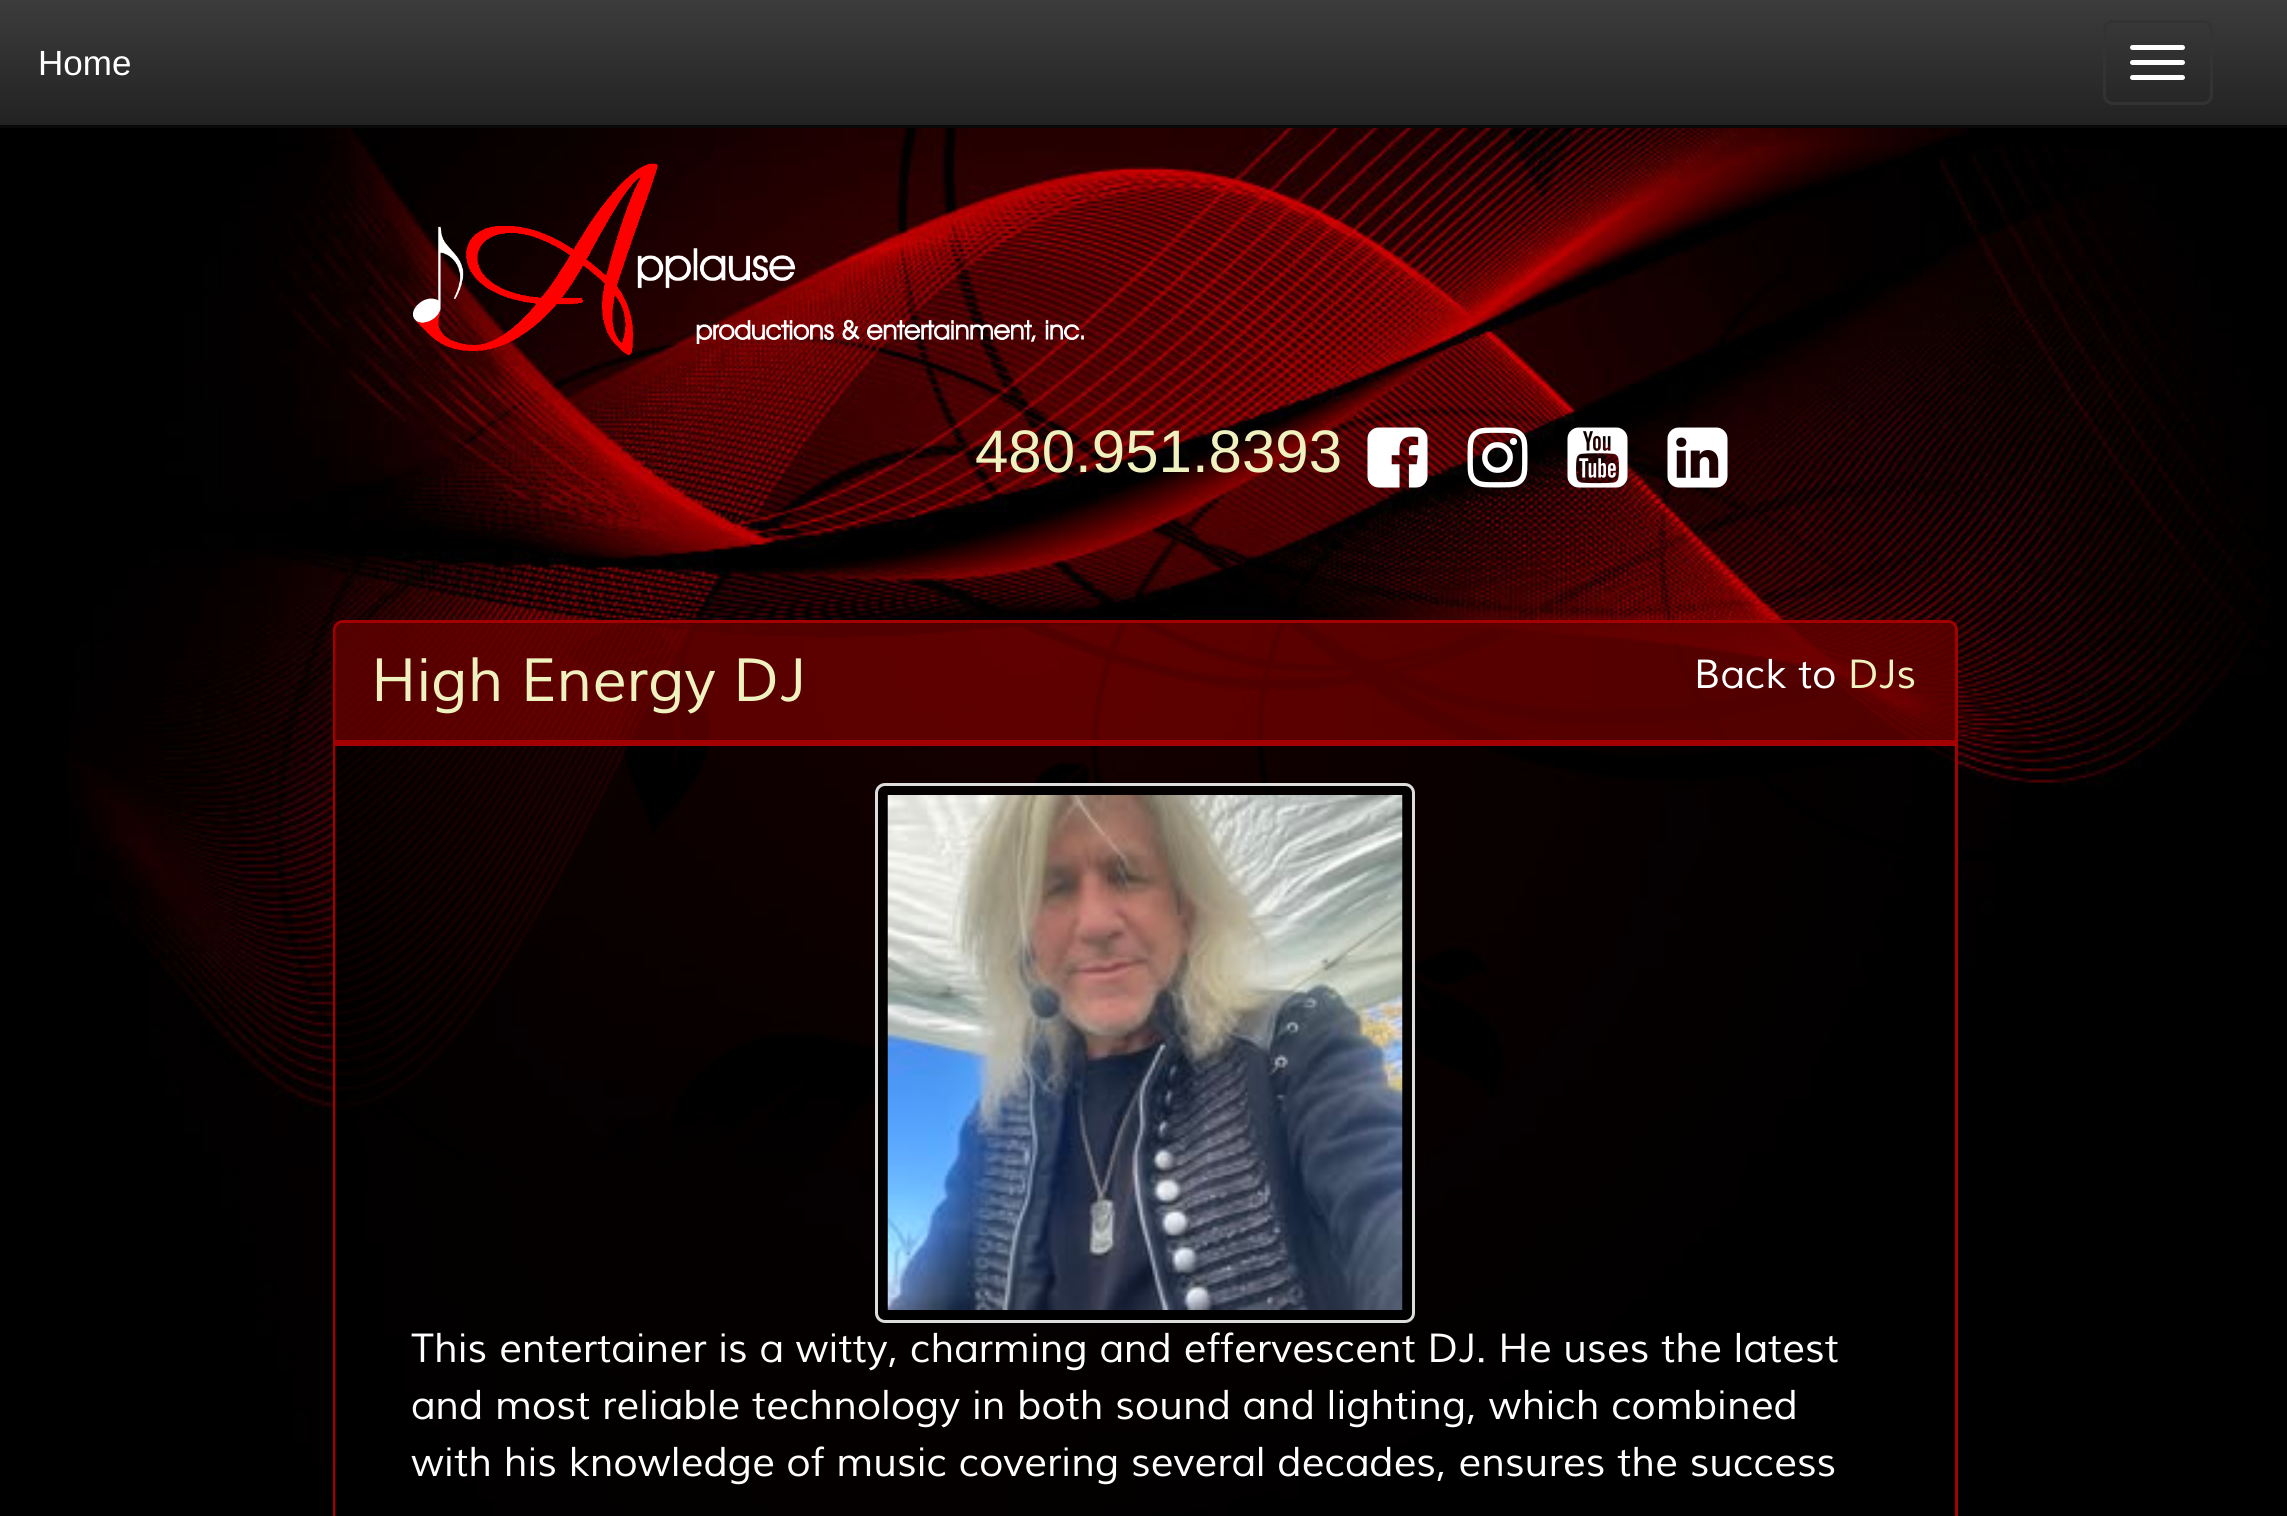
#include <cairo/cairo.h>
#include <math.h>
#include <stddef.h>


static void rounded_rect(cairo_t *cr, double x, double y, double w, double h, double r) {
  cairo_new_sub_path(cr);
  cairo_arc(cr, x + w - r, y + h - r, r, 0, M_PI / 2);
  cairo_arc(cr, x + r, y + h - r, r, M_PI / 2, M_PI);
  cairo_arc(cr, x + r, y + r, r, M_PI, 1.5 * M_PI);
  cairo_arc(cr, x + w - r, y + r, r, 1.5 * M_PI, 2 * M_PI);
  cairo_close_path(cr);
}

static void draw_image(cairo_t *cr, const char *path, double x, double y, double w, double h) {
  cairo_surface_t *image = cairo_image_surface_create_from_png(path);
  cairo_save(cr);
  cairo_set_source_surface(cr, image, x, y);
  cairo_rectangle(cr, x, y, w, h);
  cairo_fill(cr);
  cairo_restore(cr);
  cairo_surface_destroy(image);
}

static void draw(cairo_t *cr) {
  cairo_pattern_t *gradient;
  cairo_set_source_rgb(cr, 0, 0, 0);
  cairo_paint(cr);
  draw_image(cr, "images/1.png", 67, 128, 2202, 1388);
  gradient = cairo_pattern_create_linear(1144, 0, 1144, 125);
  cairo_pattern_add_color_stop_rgba(gradient, 0, 60 / 255.0, 60 / 255.0, 60 / 255.0, 1);
  cairo_pattern_add_color_stop_rgba(gradient, 1, 34 / 255.0, 34 / 255.0, 34 / 255.0, 1);
  cairo_set_source(cr, gradient);
  cairo_pattern_destroy(gradient);
  cairo_rectangle(cr, 0, 0, 2287, 125);
  cairo_fill(cr);
  cairo_set_source_rgb(cr, 8 / 255.0, 8 / 255.0, 8 / 255.0);
  cairo_rectangle(cr, 0, 125, 2287, 3);
  cairo_fill(cr);
  rounded_rect(cr, 2104.5, 21.5, 107, 82, 8.5);
  cairo_set_source_rgb(cr, 51 / 255.0, 51 / 255.0, 51 / 255.0);
  cairo_set_line_width(cr, 3);
  cairo_stroke(cr);
  cairo_set_source_rgb(cr, 1, 1, 1);
  rounded_rect(cr, 2130, 45, 55, 5, 2.5);
  cairo_fill(cr);
  rounded_rect(cr, 2130, 60, 55, 5, 2.5);
  cairo_fill(cr);
  rounded_rect(cr, 2130, 75, 55, 5, 2.5);
  cairo_fill(cr);
  draw_image(cr, "images/2.png", 413, 163, 671, 193);
  draw_image(cr, "images/3.png", 1367, 427, 61, 61);
  draw_image(cr, "images/4.png", 1467, 427, 61, 61);
  draw_image(cr, "images/5.png", 1567, 427, 61, 61);
  draw_image(cr, "images/6.png", 1667, 427, 61, 61);
  cairo_set_source_rgba(cr, 0, 0, 0, 0.2);
  rounded_rect(cr, 334.5, 621.5, 1622, 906, 8.5);
  cairo_fill_preserve(cr);
  cairo_set_source_rgb(cr, 163 / 255.0, 0, 1 / 255.0);
  cairo_stroke(cr);
  cairo_set_source_rgba(cr, 100 / 255.0, 0, 0, 0.8);
  cairo_new_path(cr);
  cairo_move_to(cr, 343, 623);
  cairo_line_to(cr, 1947, 623);
  cairo_curve_to(cr, 1951.5, 623, 1955, 626.5, 1955, 631);
  cairo_line_to(cr, 1955, 743);
  cairo_line_to(cr, 335, 743);
  cairo_line_to(cr, 335, 631);
  cairo_curve_to(cr, 335, 626.5, 338.5, 623, 343, 623);
  cairo_close_path(cr);
  cairo_fill(cr);
  cairo_set_source_rgb(cr, 163 / 255.0, 0, 1 / 255.0);
  cairo_rectangle(cr, 335, 740, 1620, 3);
  cairo_fill(cr);
  cairo_set_source_rgba(cr, 0, 0, 0, 0.7);
  cairo_rectangle(cr, 335, 746, 1620, 770);
  cairo_fill(cr);
  cairo_set_source_rgb(cr, 163 / 255.0, 0, 1 / 255.0);
  cairo_rectangle(cr, 335, 743, 1620, 3);
  cairo_fill(cr);
  cairo_set_source_rgba(cr, 0, 0, 0, 0.7);
  rounded_rect(cr, 876.5, 784.5, 537, 537, 8.5);
  cairo_fill_preserve(cr);
  cairo_set_source_rgb(cr, 221 / 255.0, 221 / 255.0, 221 / 255.0);
  cairo_stroke(cr);
  draw_image(cr, "images/7.png", 887, 795, 516, 515);
  cairo_select_font_face(cr, "Liberation Sans", CAIRO_FONT_SLANT_NORMAL, CAIRO_FONT_WEIGHT_NORMAL);
  cairo_set_font_size(cr, 35);
  cairo_set_source_rgb(cr, 1, 1, 1);
  cairo_move_to(cr, 38, 75);
  cairo_show_text(cr, "Home");
  cairo_set_font_size(cr, 60);
  cairo_set_source_rgb(cr, 239 / 255.0, 241 / 255.0, 190 / 255.0);
  cairo_move_to(cr, 975, 472);
  cairo_show_text(cr, "480.951.8393");
  cairo_select_font_face(cr, "Muli", CAIRO_FONT_SLANT_ITALIC, CAIRO_FONT_WEIGHT_NORMAL);
  cairo_move_to(cr, 371, 701);
  cairo_show_text(cr, "High Energy DJ");
  cairo_set_font_size(cr, 40);
  cairo_set_source_rgb(cr, 1, 1, 1);
  cairo_move_to(cr, 1694, 688);
  cairo_show_text(cr, "Back to");
  cairo_set_source_rgb(cr, 239 / 255.0, 241 / 255.0, 190 / 255.0);
  cairo_move_to(cr, 1848, 688);
  cairo_show_text(cr, "DJs");
  cairo_set_source_rgb(cr, 1, 1, 1);
  cairo_move_to(cr, 411, 1362);
  cairo_show_text(cr, "This entertainer is a witty, charming and effervescent DJ. He uses the latest");
  cairo_move_to(cr, 411, 1419);
  cairo_show_text(cr, "and most reliable technology in both sound and lighting, which combined");
  cairo_move_to(cr, 411, 1476);
  cairo_show_text(cr, "with his knowledge of music covering several decades, ensures the success");
}

int main(void) {
  cairo_surface_t *surface = cairo_image_surface_create(CAIRO_FORMAT_RGB24, 2287, 1516);
  cairo_t *cr = cairo_create(surface);
  cairo_font_options_t *options = cairo_font_options_create();
  cairo_font_options_set_hint_metrics(options, CAIRO_HINT_METRICS_OFF);
  cairo_font_options_set_hint_style(options, CAIRO_HINT_STYLE_NONE);
  cairo_set_font_options(cr, options);
  cairo_set_miter_limit(cr, 4);
  draw(cr);
  cairo_surface_write_to_png(surface, "out.png");
  cairo_font_options_destroy(options);
  cairo_destroy(cr);
  cairo_surface_destroy(surface);
  return 0;
}
